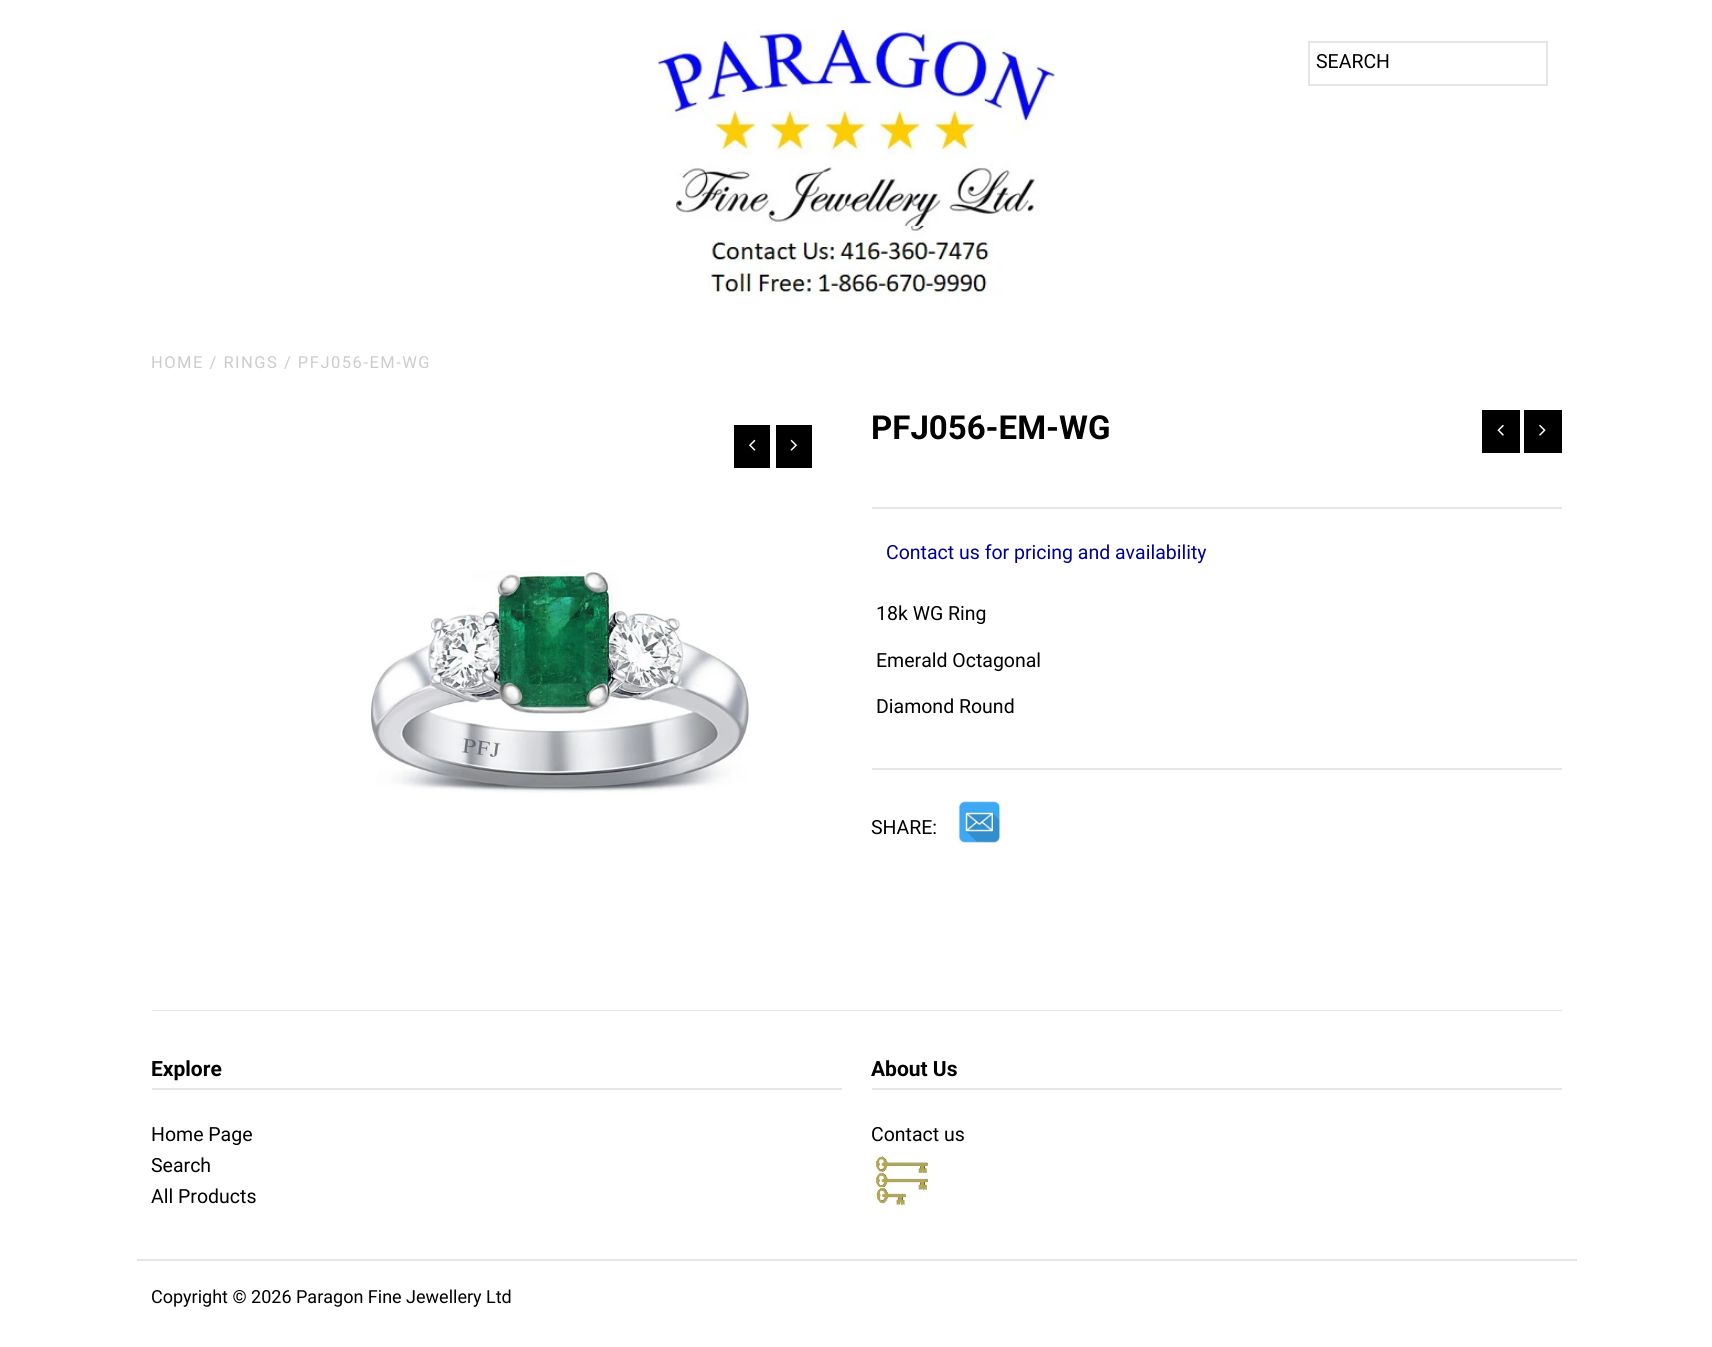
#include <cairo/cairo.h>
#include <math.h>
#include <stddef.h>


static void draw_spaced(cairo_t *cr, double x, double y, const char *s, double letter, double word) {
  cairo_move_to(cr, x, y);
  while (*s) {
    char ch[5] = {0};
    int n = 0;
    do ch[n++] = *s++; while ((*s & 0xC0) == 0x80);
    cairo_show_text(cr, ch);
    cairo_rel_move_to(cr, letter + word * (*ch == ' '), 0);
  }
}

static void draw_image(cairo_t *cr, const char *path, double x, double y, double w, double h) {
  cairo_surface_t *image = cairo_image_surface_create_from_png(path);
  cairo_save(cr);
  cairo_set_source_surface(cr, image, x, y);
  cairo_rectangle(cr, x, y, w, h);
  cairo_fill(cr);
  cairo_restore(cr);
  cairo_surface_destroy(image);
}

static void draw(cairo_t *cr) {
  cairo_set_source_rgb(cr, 1, 1, 1);
  cairo_paint(cr);
  draw_image(cr, "images/1.png", 658, 30, 397, 266);
  cairo_rectangle(cr, 1309, 42, 238, 43);
  cairo_set_source_rgb(cr, 229 / 255.0, 229 / 255.0, 229 / 255.0);
  cairo_stroke(cr);
  cairo_set_source_rgb(cr, 0, 0, 0);
  cairo_rectangle(cr, 734, 425, 36, 43);
  cairo_fill(cr);
  draw_image(cr, "images/2.png", 749, 439, 7, 12);
  cairo_rectangle(cr, 776, 425, 36, 43);
  cairo_fill(cr);
  draw_image(cr, "images/3.png", 790, 439, 7, 12);
  draw_image(cr, "images/4.png", 371, 571, 379, 222);
  cairo_rectangle(cr, 1482, 410, 38, 43);
  cairo_fill(cr);
  draw_image(cr, "images/5.png", 1497, 424, 7, 12);
  cairo_rectangle(cr, 1524, 410, 38, 43);
  cairo_fill(cr);
  draw_image(cr, "images/6.png", 1539, 424, 7, 12);
  cairo_set_source_rgb(cr, 229 / 255.0, 229 / 255.0, 229 / 255.0);
  cairo_rectangle(cr, 872, 507, 690, 2);
  cairo_fill(cr);
  cairo_rectangle(cr, 872, 768, 690, 2);
  cairo_fill(cr);
  draw_image(cr, "images/7.png", 957, 800, 44, 43);
  cairo_rectangle(cr, 152, 1010, 1410, 1);
  cairo_fill(cr);
  cairo_rectangle(cr, 152, 1088, 690, 2);
  cairo_fill(cr);
  cairo_rectangle(cr, 872, 1088, 690, 2);
  cairo_fill(cr);
  draw_image(cr, "images/8.png", 872, 1155, 57, 53);
  cairo_rectangle(cr, 137, 1259, 1440, 2);
  cairo_fill(cr);
  cairo_select_font_face(cr, "Roboto", CAIRO_FONT_SLANT_NORMAL, CAIRO_FONT_WEIGHT_NORMAL);
  cairo_set_font_size(cr, 19.5);
  cairo_set_source_rgb(cr, 0, 0, 0);
  cairo_move_to(cr, 1316, 68);
  cairo_show_text(cr, "SEARCH");
  cairo_set_font_size(cr, 16.5);
  cairo_set_source_rgb(cr, 204 / 255.0, 204 / 255.0, 204 / 255.0);
  draw_spaced(cr, 151, 368, "HOME / RINGS / PFJ056-EM-WG", 1.5, 0);
  cairo_select_font_face(cr, "Roboto", CAIRO_FONT_SLANT_NORMAL, CAIRO_FONT_WEIGHT_BOLD);
  cairo_set_font_size(cr, 33);
  cairo_set_source_rgb(cr, 0, 0, 0);
  cairo_move_to(cr, 871, 439);
  cairo_show_text(cr, "PFJ056-EM-WG");
  cairo_select_font_face(cr, "Roboto", CAIRO_FONT_SLANT_NORMAL, CAIRO_FONT_WEIGHT_NORMAL);
  cairo_set_font_size(cr, 19.5);
  cairo_set_source_rgb(cr, 0, 0, 153 / 255.0);
  cairo_move_to(cr, 886, 559);
  cairo_show_text(cr, "Contact us for pricing and availability");
  cairo_set_source_rgb(cr, 0, 0, 0);
  cairo_move_to(cr, 876, 620);
  cairo_show_text(cr, "18k WG Ring");
  cairo_move_to(cr, 876, 667);
  cairo_show_text(cr, "Emerald Octagonal");
  cairo_move_to(cr, 876, 713);
  cairo_show_text(cr, "Diamond Round");
  cairo_move_to(cr, 871, 834);
  cairo_show_text(cr, "SHARE:");
  cairo_select_font_face(cr, "Roboto", CAIRO_FONT_SLANT_NORMAL, CAIRO_FONT_WEIGHT_BOLD);
  cairo_set_font_size(cr, 21);
  cairo_move_to(cr, 151, 1076);
  cairo_show_text(cr, "Explore");
  cairo_select_font_face(cr, "Roboto", CAIRO_FONT_SLANT_NORMAL, CAIRO_FONT_WEIGHT_NORMAL);
  cairo_set_font_size(cr, 19.5);
  cairo_move_to(cr, 151, 1141);
  cairo_show_text(cr, "Home Page");
  cairo_move_to(cr, 151, 1172);
  cairo_show_text(cr, "Search");
  cairo_move_to(cr, 151, 1203);
  cairo_show_text(cr, "All Products");
  cairo_select_font_face(cr, "Roboto", CAIRO_FONT_SLANT_NORMAL, CAIRO_FONT_WEIGHT_BOLD);
  cairo_set_font_size(cr, 21);
  cairo_move_to(cr, 871, 1076);
  cairo_show_text(cr, "About Us");
  cairo_select_font_face(cr, "Roboto", CAIRO_FONT_SLANT_NORMAL, CAIRO_FONT_WEIGHT_NORMAL);
  cairo_set_font_size(cr, 19.5);
  cairo_move_to(cr, 871, 1141);
  cairo_show_text(cr, "Contact us");
  cairo_set_font_size(cr, 18);
  cairo_move_to(cr, 151, 1303);
  cairo_show_text(cr, "Copyright © 2026 Paragon Fine Jewellery Ltd");
}

int main(void) {
  cairo_surface_t *surface = cairo_image_surface_create(CAIRO_FORMAT_RGB24, 1712, 1347);
  cairo_t *cr = cairo_create(surface);
  cairo_font_options_t *options = cairo_font_options_create();
  cairo_font_options_set_hint_metrics(options, CAIRO_HINT_METRICS_OFF);
  cairo_font_options_set_hint_style(options, CAIRO_HINT_STYLE_NONE);
  cairo_set_font_options(cr, options);
  cairo_set_miter_limit(cr, 4);
  draw(cr);
  cairo_surface_write_to_png(surface, "out.png");
  cairo_font_options_destroy(options);
  cairo_destroy(cr);
  cairo_surface_destroy(surface);
  return 0;
}
